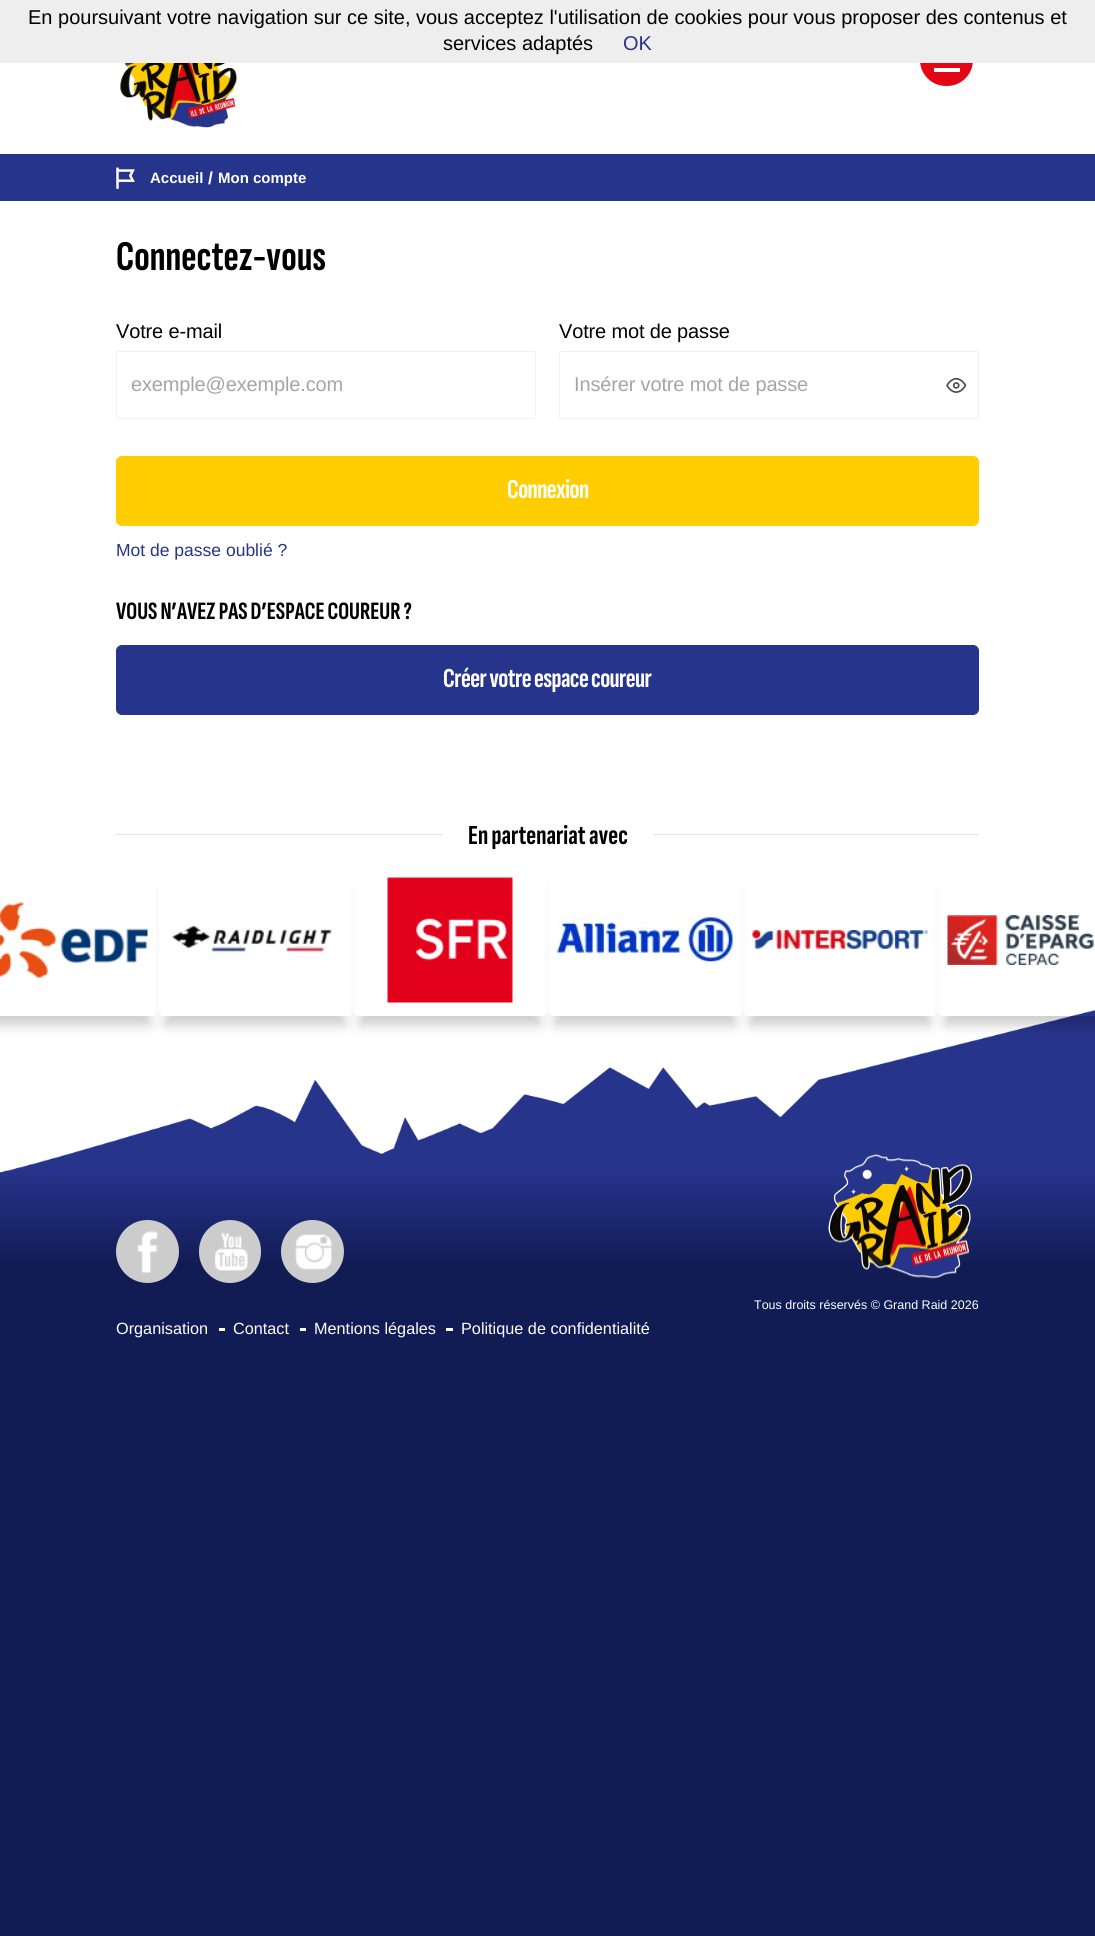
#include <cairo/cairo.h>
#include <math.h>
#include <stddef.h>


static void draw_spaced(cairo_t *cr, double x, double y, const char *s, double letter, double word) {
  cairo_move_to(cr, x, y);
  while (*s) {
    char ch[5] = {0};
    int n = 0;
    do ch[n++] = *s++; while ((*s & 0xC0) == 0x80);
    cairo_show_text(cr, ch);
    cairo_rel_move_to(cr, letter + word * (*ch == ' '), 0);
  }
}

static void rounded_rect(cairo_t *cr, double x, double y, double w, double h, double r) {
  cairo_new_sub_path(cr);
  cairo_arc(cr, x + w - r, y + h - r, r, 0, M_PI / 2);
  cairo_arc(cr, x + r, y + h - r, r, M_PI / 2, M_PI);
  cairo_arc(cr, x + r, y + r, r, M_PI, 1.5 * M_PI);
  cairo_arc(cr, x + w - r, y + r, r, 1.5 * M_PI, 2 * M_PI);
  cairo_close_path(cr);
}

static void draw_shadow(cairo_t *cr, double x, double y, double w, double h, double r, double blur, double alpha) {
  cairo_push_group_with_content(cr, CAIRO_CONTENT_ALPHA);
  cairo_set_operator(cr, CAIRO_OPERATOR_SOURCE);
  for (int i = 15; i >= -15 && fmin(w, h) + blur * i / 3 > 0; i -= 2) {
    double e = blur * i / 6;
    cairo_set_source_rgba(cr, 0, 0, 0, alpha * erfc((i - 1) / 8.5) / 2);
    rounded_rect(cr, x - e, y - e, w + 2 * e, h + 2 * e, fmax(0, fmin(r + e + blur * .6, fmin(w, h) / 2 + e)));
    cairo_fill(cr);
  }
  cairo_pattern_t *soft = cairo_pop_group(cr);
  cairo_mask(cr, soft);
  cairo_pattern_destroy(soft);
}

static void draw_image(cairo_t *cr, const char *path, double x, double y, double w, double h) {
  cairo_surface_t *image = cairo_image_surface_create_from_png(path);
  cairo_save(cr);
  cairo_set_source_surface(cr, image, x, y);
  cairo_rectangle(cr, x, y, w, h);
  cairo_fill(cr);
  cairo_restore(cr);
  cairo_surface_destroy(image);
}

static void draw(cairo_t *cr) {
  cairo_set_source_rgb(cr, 17 / 255.0, 27 / 255.0, 84 / 255.0);
  cairo_paint(cr);
  cairo_set_source_rgb(cr, 1, 1, 1);
  cairo_rectangle(cr, 0, 63, 1095, 1110);
  cairo_fill(cr);
  cairo_set_source_rgb(cr, 227 / 255.0, 6 / 255.0, 19 / 255.0);
  rounded_rect(cr, 920, 34, 53, 52, 26);
  cairo_fill(cr);
  cairo_set_source_rgb(cr, 238 / 255.0, 238 / 255.0, 238 / 255.0);
  cairo_rectangle(cr, 0, 0, 1095, 63);
  cairo_fill(cr);
  draw_image(cr, "images/1.png", 120, 63, 118, 65);
  cairo_set_source_rgb(cr, 1, 1, 1);
  cairo_rectangle(cr, 934, 68, 26, 4);
  cairo_fill(cr);
  cairo_set_source_rgb(cr, 38 / 255.0, 52 / 255.0, 139 / 255.0);
  cairo_rectangle(cr, 0, 154, 1095, 47);
  cairo_fill(cr);
  draw_image(cr, "images/2.png", 116, 167, 19, 22);
  rounded_rect(cr, 116.5, 351.5, 419, 67, 2);
  cairo_set_source_rgb(cr, 240 / 255.0, 240 / 255.0, 240 / 255.0);
  cairo_set_line_width(cr, 1);
  cairo_stroke(cr);
  rounded_rect(cr, 559.5, 351.5, 419, 67, 2);
  cairo_stroke(cr);
  draw_image(cr, "images/3.png", 946, 377, 21, 16);
  cairo_set_source_rgb(cr, 1, 205 / 255.0, 0);
  rounded_rect(cr, 116.5, 456.5, 862, 69, 5.5);
  cairo_fill_preserve(cr);
  cairo_stroke(cr);
  cairo_set_source_rgb(cr, 38 / 255.0, 52 / 255.0, 139 / 255.0);
  rounded_rect(cr, 116.5, 645.5, 862, 69, 5.5);
  cairo_fill_preserve(cr);
  cairo_stroke(cr);
  cairo_set_source_rgb(cr, 229 / 255.0, 229 / 255.0, 229 / 255.0);
  cairo_rectangle(cr, 116, 834, 863, 1);
  cairo_fill(cr);
  cairo_set_source_rgb(cr, 1, 1, 1);
  cairo_rectangle(cr, 443, 834, 210, 1);
  cairo_fill(cr);
  draw_image(cr, "images/10.png", 0, 1010, 1095, 251);
  cairo_save(cr);
  cairo_set_fill_rule(cr, CAIRO_FILL_RULE_EVEN_ODD);
  cairo_new_path(cr);
  cairo_move_to(cr, 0, 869);
  cairo_line_to(cr, 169, 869);
  cairo_line_to(cr, 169, 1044);
  cairo_line_to(cr, 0, 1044);
  cairo_close_path(cr);
  cairo_move_to(cr, -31, 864);
  cairo_line_to(cr, 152, 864);
  cairo_curve_to(cr, 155.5, 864, 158, 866.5, 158, 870);
  cairo_line_to(cr, 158, 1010);
  cairo_curve_to(cr, 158, 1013.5, 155.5, 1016, 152, 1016);
  cairo_line_to(cr, -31, 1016);
  cairo_curve_to(cr, -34.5, 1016, -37, 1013.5, -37, 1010);
  cairo_line_to(cr, -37, 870);
  cairo_curve_to(cr, -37, 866.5, -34.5, 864, -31, 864);
  cairo_close_path(cr);
  cairo_clip(cr);
  cairo_set_source_rgb(cr, 0, 0, 0);
  draw_shadow(cr, -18, 888, 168, 137, 0, 6, 0.2);
  cairo_restore(cr);
  draw_image(cr, "images/4.png", 0, 902, 148, 76);
  cairo_save(cr);
  cairo_set_fill_rule(cr, CAIRO_FILL_RULE_EVEN_ODD);
  cairo_new_path(cr);
  cairo_move_to(cr, 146, 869);
  cairo_line_to(cr, 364, 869);
  cairo_line_to(cr, 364, 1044);
  cairo_line_to(cr, 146, 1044);
  cairo_close_path(cr);
  cairo_move_to(cr, 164, 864);
  cairo_line_to(cr, 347, 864);
  cairo_curve_to(cr, 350.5, 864, 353, 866.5, 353, 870);
  cairo_line_to(cr, 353, 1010);
  cairo_curve_to(cr, 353, 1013.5, 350.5, 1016, 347, 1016);
  cairo_line_to(cr, 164, 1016);
  cairo_curve_to(cr, 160.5, 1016, 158, 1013.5, 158, 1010);
  cairo_line_to(cr, 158, 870);
  cairo_curve_to(cr, 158, 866.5, 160.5, 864, 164, 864);
  cairo_close_path(cr);
  cairo_clip(cr);
  cairo_set_source_rgb(cr, 0, 0, 0);
  draw_shadow(cr, 165, 888, 180, 137, 0, 6, 0.2);
  cairo_restore(cr);
  draw_image(cr, "images/5.png", 172, 925, 160, 31);
  cairo_save(cr);
  cairo_set_fill_rule(cr, CAIRO_FILL_RULE_EVEN_ODD);
  cairo_new_path(cr);
  cairo_move_to(cr, 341, 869);
  cairo_line_to(cr, 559, 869);
  cairo_line_to(cr, 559, 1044);
  cairo_line_to(cr, 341, 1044);
  cairo_close_path(cr);
  cairo_move_to(cr, 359, 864);
  cairo_line_to(cr, 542, 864);
  cairo_curve_to(cr, 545.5, 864, 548, 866.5, 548, 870);
  cairo_line_to(cr, 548, 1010);
  cairo_curve_to(cr, 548, 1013.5, 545.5, 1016, 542, 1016);
  cairo_line_to(cr, 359, 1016);
  cairo_curve_to(cr, 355.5, 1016, 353, 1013.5, 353, 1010);
  cairo_line_to(cr, 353, 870);
  cairo_curve_to(cr, 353, 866.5, 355.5, 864, 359, 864);
  cairo_close_path(cr);
  cairo_clip(cr);
  cairo_set_source_rgb(cr, 0, 0, 0);
  draw_shadow(cr, 360, 888, 180, 137, 0, 6, 0.2);
  cairo_restore(cr);
  draw_image(cr, "images/6.png", 387, 877, 126, 126);
  cairo_save(cr);
  cairo_set_fill_rule(cr, CAIRO_FILL_RULE_EVEN_ODD);
  cairo_new_path(cr);
  cairo_move_to(cr, 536, 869);
  cairo_line_to(cr, 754, 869);
  cairo_line_to(cr, 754, 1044);
  cairo_line_to(cr, 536, 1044);
  cairo_close_path(cr);
  cairo_move_to(cr, 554, 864);
  cairo_line_to(cr, 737, 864);
  cairo_curve_to(cr, 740.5, 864, 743, 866.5, 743, 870);
  cairo_line_to(cr, 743, 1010);
  cairo_curve_to(cr, 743, 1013.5, 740.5, 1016, 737, 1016);
  cairo_line_to(cr, 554, 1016);
  cairo_curve_to(cr, 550.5, 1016, 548, 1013.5, 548, 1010);
  cairo_line_to(cr, 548, 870);
  cairo_curve_to(cr, 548, 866.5, 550.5, 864, 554, 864);
  cairo_close_path(cr);
  cairo_clip(cr);
  cairo_set_source_rgb(cr, 0, 0, 0);
  draw_shadow(cr, 555, 888, 180, 137, 0, 6, 0.2);
  cairo_restore(cr);
  draw_image(cr, "images/7.png", 557, 917, 176, 45);
  cairo_save(cr);
  cairo_set_fill_rule(cr, CAIRO_FILL_RULE_EVEN_ODD);
  cairo_new_path(cr);
  cairo_move_to(cr, 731, 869);
  cairo_line_to(cr, 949, 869);
  cairo_line_to(cr, 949, 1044);
  cairo_line_to(cr, 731, 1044);
  cairo_close_path(cr);
  cairo_move_to(cr, 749, 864);
  cairo_line_to(cr, 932, 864);
  cairo_curve_to(cr, 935.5, 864, 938, 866.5, 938, 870);
  cairo_line_to(cr, 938, 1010);
  cairo_curve_to(cr, 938, 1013.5, 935.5, 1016, 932, 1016);
  cairo_line_to(cr, 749, 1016);
  cairo_curve_to(cr, 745.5, 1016, 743, 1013.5, 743, 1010);
  cairo_line_to(cr, 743, 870);
  cairo_curve_to(cr, 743, 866.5, 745.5, 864, 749, 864);
  cairo_close_path(cr);
  cairo_clip(cr);
  cairo_set_source_rgb(cr, 0, 0, 0);
  draw_shadow(cr, 750, 888, 180, 137, 0, 6, 0.2);
  cairo_restore(cr);
  draw_image(cr, "images/8.png", 752, 930, 176, 19);
  cairo_save(cr);
  cairo_set_fill_rule(cr, CAIRO_FILL_RULE_EVEN_ODD);
  cairo_new_path(cr);
  cairo_move_to(cr, 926, 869);
  cairo_line_to(cr, 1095, 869);
  cairo_line_to(cr, 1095, 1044);
  cairo_line_to(cr, 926, 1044);
  cairo_close_path(cr);
  cairo_move_to(cr, 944, 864);
  cairo_line_to(cr, 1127, 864);
  cairo_curve_to(cr, 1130.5, 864, 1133, 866.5, 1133, 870);
  cairo_line_to(cr, 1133, 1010);
  cairo_curve_to(cr, 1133, 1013.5, 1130.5, 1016, 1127, 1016);
  cairo_line_to(cr, 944, 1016);
  cairo_curve_to(cr, 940.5, 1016, 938, 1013.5, 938, 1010);
  cairo_line_to(cr, 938, 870);
  cairo_curve_to(cr, 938, 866.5, 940.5, 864, 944, 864);
  cairo_close_path(cr);
  cairo_clip(cr);
  cairo_set_source_rgb(cr, 0, 0, 0);
  draw_shadow(cr, 945, 888, 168, 137, 0, 6, 0.2);
  cairo_restore(cr);
  draw_image(cr, "images/9.png", 947, 915, 147, 50);
  draw_image(cr, "images/11.png", 828, 1154, 144, 125);
  cairo_set_source_rgb(cr, 204 / 255.0, 204 / 255.0, 204 / 255.0);
  cairo_arc(cr, 147.5, 1251.5, 31.5, 0, 2 * M_PI);
  cairo_fill(cr);
  draw_image(cr, "images/12.png", 137, 1231, 21, 42);
  rounded_rect(cr, 199, 1220, 62, 63, 31);
  cairo_fill(cr);
  draw_image(cr, "images/13.png", 215, 1232, 33, 39);
  cairo_arc(cr, 312.5, 1251.5, 31.5, 0, 2 * M_PI);
  cairo_fill(cr);
  draw_image(cr, "images/14.png", 295, 1234, 37, 36);
  cairo_set_source_rgb(cr, 1, 1, 1);
  cairo_rectangle(cr, 219, 1328, 6, 3);
  cairo_fill(cr);
  cairo_rectangle(cr, 300, 1328, 6, 3);
  cairo_fill(cr);
  cairo_rectangle(cr, 446, 1328, 7, 3);
  cairo_fill(cr);
  cairo_select_font_face(cr, "Liberation Sans", CAIRO_FONT_SLANT_NORMAL, CAIRO_FONT_WEIGHT_NORMAL);
  cairo_set_font_size(cr, 20);
  cairo_set_source_rgb(cr, 0, 0, 0);
  cairo_move_to(cr, 28, 24);
  cairo_show_text(cr, "En poursuivant votre navigation sur ce site, vous acceptez l'utilisation de cookies pour vous proposer des contenus et");
  cairo_move_to(cr, 443, 50);
  cairo_show_text(cr, "services adaptés");
  cairo_set_source_rgb(cr, 38 / 255.0, 52 / 255.0, 139 / 255.0);
  cairo_move_to(cr, 623, 50);
  cairo_show_text(cr, "OK");
  cairo_select_font_face(cr, "Liberation Sans", CAIRO_FONT_SLANT_NORMAL, CAIRO_FONT_WEIGHT_BOLD);
  cairo_set_font_size(cr, 15);
  cairo_set_source_rgb(cr, 1, 1, 1);
  cairo_move_to(cr, 150, 183);
  cairo_show_text(cr, "Accueil");
  cairo_set_font_size(cr, 17.5);
  cairo_move_to(cr, 208, 184);
  cairo_show_text(cr, "/");
  cairo_set_font_size(cr, 15);
  cairo_move_to(cr, 218, 183);
  cairo_show_text(cr, "Mon compte");
  cairo_select_font_face(cr, "Sofia Sans Extra Condensed", CAIRO_FONT_SLANT_NORMAL, CAIRO_FONT_WEIGHT_BOLD);
  cairo_set_font_size(cr, 42.5);
  cairo_set_source_rgb(cr, 0, 0, 0);
  cairo_move_to(cr, 116, 270);
  cairo_show_text(cr, "Connectez-vous");
  cairo_select_font_face(cr, "Liberation Sans", CAIRO_FONT_SLANT_NORMAL, CAIRO_FONT_WEIGHT_NORMAL);
  cairo_set_font_size(cr, 20);
  draw_spaced(cr, 116, 338, "Votre e-mail", -0.15, 0);
  cairo_set_source_rgb(cr, 165 / 255.0, 165 / 255.0, 165 / 255.0);
  draw_spaced(cr, 131, 391, "exemple@exemple.com", -0.15, 0);
  cairo_set_source_rgb(cr, 0, 0, 0);
  draw_spaced(cr, 559, 338, "Votre mot de passe", -0.15, 0);
  cairo_set_source_rgb(cr, 165 / 255.0, 165 / 255.0, 165 / 255.0);
  draw_spaced(cr, 574, 391, "Insérer votre mot de passe", -0.15, 0);
  cairo_select_font_face(cr, "Sofia Sans Extra Condensed", CAIRO_FONT_SLANT_NORMAL, CAIRO_FONT_WEIGHT_BOLD);
  cairo_set_font_size(cr, 27.5);
  cairo_set_source_rgb(cr, 1, 1, 1);
  draw_spaced(cr, 507, 498, "Connexion", -0.6, 0);
  cairo_select_font_face(cr, "Liberation Sans", CAIRO_FONT_SLANT_NORMAL, CAIRO_FONT_WEIGHT_NORMAL);
  cairo_set_font_size(cr, 17.5);
  cairo_set_source_rgb(cr, 38 / 255.0, 52 / 255.0, 139 / 255.0);
  cairo_move_to(cr, 116, 556);
  cairo_show_text(cr, "Mot de passe oublié ?");
  cairo_select_font_face(cr, "Sofia Sans Extra Condensed", CAIRO_FONT_SLANT_NORMAL, CAIRO_FONT_WEIGHT_BOLD);
  cairo_set_font_size(cr, 25);
  cairo_set_source_rgb(cr, 0, 0, 0);
  cairo_move_to(cr, 116, 619);
  cairo_show_text(cr, "VOUS N’AVEZ PAS D’ESPACE COUREUR ?");
  cairo_set_font_size(cr, 27.5);
  cairo_set_source_rgb(cr, 1, 1, 1);
  draw_spaced(cr, 443, 687, "Créer votre espace coureur", -0.6, 0);
  cairo_set_source_rgb(cr, 0, 0, 0);
  cairo_move_to(cr, 468, 844);
  cairo_show_text(cr, "En partenariat avec");
  cairo_select_font_face(cr, "Liberation Sans", CAIRO_FONT_SLANT_NORMAL, CAIRO_FONT_WEIGHT_NORMAL);
  cairo_set_font_size(cr, 12.5);
  cairo_set_source_rgb(cr, 1, 1, 1);
  cairo_move_to(cr, 754, 1309);
  cairo_show_text(cr, "Tous droits réservés © Grand Raid 2026");
  cairo_set_font_size(cr, 16.25);
  cairo_move_to(cr, 116, 1334);
  cairo_show_text(cr, "Organisation");
  cairo_move_to(cr, 233, 1334);
  cairo_show_text(cr, "Contact");
  cairo_move_to(cr, 314, 1334);
  cairo_show_text(cr, "Mentions légales");
  cairo_move_to(cr, 461, 1334);
  cairo_show_text(cr, "Politique de confidentialité");
}

int main(void) {
  cairo_surface_t *surface = cairo_image_surface_create(CAIRO_FORMAT_RGB24, 1095, 1936);
  cairo_t *cr = cairo_create(surface);
  cairo_font_options_t *options = cairo_font_options_create();
  cairo_font_options_set_hint_metrics(options, CAIRO_HINT_METRICS_OFF);
  cairo_font_options_set_hint_style(options, CAIRO_HINT_STYLE_NONE);
  cairo_set_font_options(cr, options);
  cairo_set_miter_limit(cr, 4);
  draw(cr);
  cairo_surface_write_to_png(surface, "out.png");
  cairo_font_options_destroy(options);
  cairo_destroy(cr);
  cairo_surface_destroy(surface);
  return 0;
}
